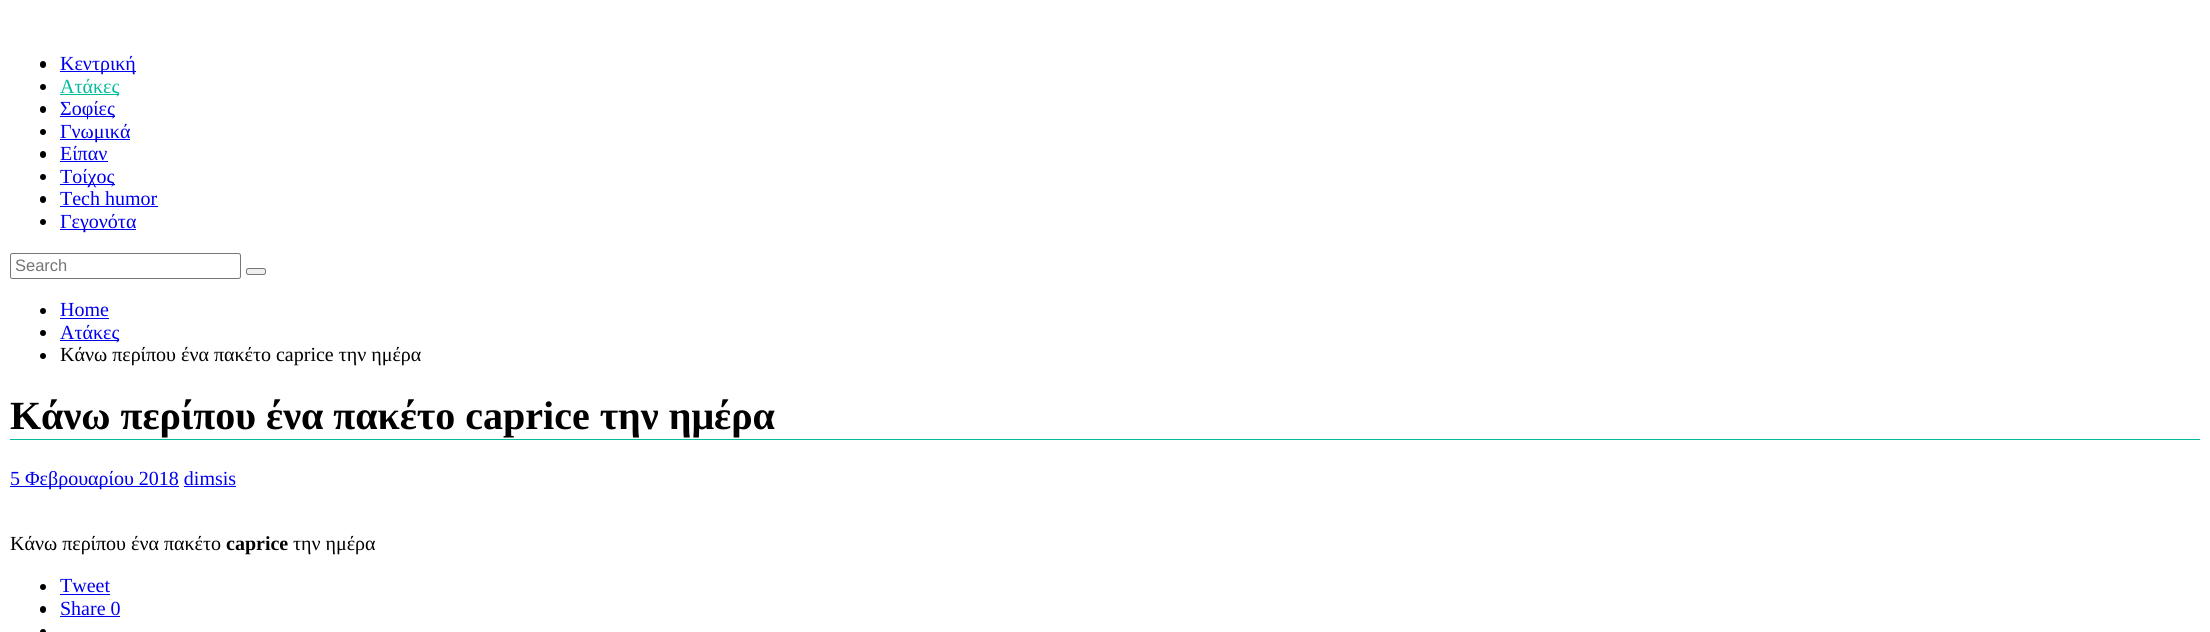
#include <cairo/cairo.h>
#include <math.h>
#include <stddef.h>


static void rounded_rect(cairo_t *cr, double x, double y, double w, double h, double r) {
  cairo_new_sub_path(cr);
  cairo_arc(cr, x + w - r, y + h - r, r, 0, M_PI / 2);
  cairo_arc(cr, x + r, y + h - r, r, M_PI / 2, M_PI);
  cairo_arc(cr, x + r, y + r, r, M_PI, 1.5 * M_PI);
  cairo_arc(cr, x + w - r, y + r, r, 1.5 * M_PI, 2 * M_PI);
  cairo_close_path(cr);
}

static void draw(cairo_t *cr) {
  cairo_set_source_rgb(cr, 1, 1, 1);
  cairo_paint(cr);
  cairo_set_source_rgb(cr, 0, 0, 0);
  rounded_rect(cr, 40, 61, 6, 7, 3);
  cairo_fill(cr);
  cairo_set_source_rgb(cr, 0, 0, 238 / 255.0);
  cairo_rectangle(cr, 60, 71, 76, 1);
  cairo_fill(cr);
  cairo_set_source_rgb(cr, 0, 0, 0);
  cairo_arc(cr, 43, 87, 3, 0, 2 * M_PI);
  cairo_fill(cr);
  cairo_set_source_rgb(cr, 4 / 255.0, 187 / 255.0, 156 / 255.0);
  cairo_rectangle(cr, 60, 94, 59, 1);
  cairo_fill(cr);
  cairo_set_source_rgb(cr, 0, 0, 0);
  rounded_rect(cr, 40, 106, 6, 7, 3);
  cairo_fill(cr);
  cairo_set_source_rgb(cr, 0, 0, 238 / 255.0);
  cairo_rectangle(cr, 60, 116, 55, 1);
  cairo_fill(cr);
  cairo_set_source_rgb(cr, 0, 0, 0);
  cairo_arc(cr, 43, 132, 3, 0, 2 * M_PI);
  cairo_fill(cr);
  cairo_set_source_rgb(cr, 0, 0, 238 / 255.0);
  cairo_rectangle(cr, 60, 139, 70, 1);
  cairo_fill(cr);
  cairo_set_source_rgb(cr, 0, 0, 0);
  rounded_rect(cr, 40, 151, 6, 7, 3);
  cairo_fill(cr);
  cairo_set_source_rgb(cr, 0, 0, 238 / 255.0);
  cairo_rectangle(cr, 60, 161, 48, 1);
  cairo_fill(cr);
  cairo_set_source_rgb(cr, 0, 0, 0);
  cairo_arc(cr, 43, 177, 3, 0, 2 * M_PI);
  cairo_fill(cr);
  cairo_set_source_rgb(cr, 0, 0, 238 / 255.0);
  cairo_rectangle(cr, 60, 184, 55, 1);
  cairo_fill(cr);
  cairo_set_source_rgb(cr, 0, 0, 0);
  rounded_rect(cr, 40, 196, 6, 7, 3);
  cairo_fill(cr);
  cairo_set_source_rgb(cr, 0, 0, 238 / 255.0);
  cairo_rectangle(cr, 60, 206, 98, 1);
  cairo_fill(cr);
  cairo_set_source_rgb(cr, 0, 0, 0);
  cairo_arc(cr, 43, 222, 3, 0, 2 * M_PI);
  cairo_fill(cr);
  cairo_set_source_rgb(cr, 0, 0, 238 / 255.0);
  cairo_rectangle(cr, 60, 229, 76, 1);
  cairo_fill(cr);
  rounded_rect(cr, 10.5, 253.5, 230, 25, 2);
  cairo_set_source_rgb(cr, 118 / 255.0, 118 / 255.0, 118 / 255.0);
  cairo_set_line_width(cr, 1);
  cairo_stroke(cr);
  cairo_set_source_rgb(cr, 239 / 255.0, 239 / 255.0, 239 / 255.0);
  rounded_rect(cr, 246.5, 268.5, 19, 6, 2);
  cairo_fill_preserve(cr);
  cairo_set_source_rgb(cr, 118 / 255.0, 118 / 255.0, 118 / 255.0);
  cairo_stroke(cr);
  cairo_set_source_rgb(cr, 0, 0, 0);
  cairo_arc(cr, 43, 311, 3, 0, 2 * M_PI);
  cairo_fill(cr);
  cairo_set_source_rgb(cr, 0, 0, 238 / 255.0);
  cairo_rectangle(cr, 60, 318, 49, 1);
  cairo_fill(cr);
  cairo_set_source_rgb(cr, 0, 0, 0);
  cairo_arc(cr, 43, 333, 3, 0, 2 * M_PI);
  cairo_fill(cr);
  cairo_set_source_rgb(cr, 0, 0, 238 / 255.0);
  cairo_rectangle(cr, 60, 340, 59, 1);
  cairo_fill(cr);
  cairo_set_source_rgb(cr, 0, 0, 0);
  cairo_arc(cr, 43, 356, 3, 0, 2 * M_PI);
  cairo_fill(cr);
  cairo_set_source_rgb(cr, 4 / 255.0, 187 / 255.0, 156 / 255.0);
  cairo_rectangle(cr, 10, 439, 2190, 1);
  cairo_fill(cr);
  cairo_set_source_rgb(cr, 0, 0, 238 / 255.0);
  cairo_rectangle(cr, 10, 486, 169, 1);
  cairo_fill(cr);
  cairo_rectangle(cr, 184, 486, 52, 1);
  cairo_fill(cr);
  cairo_set_source_rgb(cr, 0, 0, 0);
  cairo_arc(cr, 43, 587, 3, 0, 2 * M_PI);
  cairo_fill(cr);
  cairo_set_source_rgb(cr, 0, 0, 238 / 255.0);
  cairo_rectangle(cr, 60, 594, 50, 1);
  cairo_fill(cr);
  cairo_set_source_rgb(cr, 0, 0, 0);
  rounded_rect(cr, 40, 606, 6, 7, 3);
  cairo_fill(cr);
  cairo_set_source_rgb(cr, 0, 0, 238 / 255.0);
  cairo_rectangle(cr, 60, 616, 60, 1);
  cairo_fill(cr);
  cairo_set_source_rgb(cr, 0, 0, 0);
  cairo_arc(cr, 43, 632, 3, 0, 2 * M_PI);
  cairo_fill(cr);
  cairo_select_font_face(cr, "Liberation Serif", CAIRO_FONT_SLANT_NORMAL, CAIRO_FONT_WEIGHT_NORMAL);
  cairo_set_font_size(cr, 20);
  cairo_set_source_rgb(cr, 0, 0, 238 / 255.0);
  cairo_move_to(cr, 60, 70);
  cairo_show_text(cr, "Κεντρική");
  cairo_set_source_rgb(cr, 4 / 255.0, 187 / 255.0, 156 / 255.0);
  cairo_move_to(cr, 60, 93);
  cairo_show_text(cr, "Ατάκες");
  cairo_set_source_rgb(cr, 0, 0, 238 / 255.0);
  cairo_move_to(cr, 60, 115);
  cairo_show_text(cr, "Σοφίες");
  cairo_move_to(cr, 60, 138);
  cairo_show_text(cr, "Γνωμικά");
  cairo_move_to(cr, 60, 160);
  cairo_show_text(cr, "Είπαν");
  cairo_move_to(cr, 60, 183);
  cairo_show_text(cr, "Τοίχος");
  cairo_move_to(cr, 60, 205);
  cairo_show_text(cr, "Tech humor");
  cairo_move_to(cr, 60, 228);
  cairo_show_text(cr, "Γεγονότα");
  cairo_select_font_face(cr, "Liberation Sans", CAIRO_FONT_SLANT_NORMAL, CAIRO_FONT_WEIGHT_NORMAL);
  cairo_set_font_size(cr, 16.5);
  cairo_set_source_rgb(cr, 117 / 255.0, 117 / 255.0, 117 / 255.0);
  cairo_move_to(cr, 15, 271);
  cairo_show_text(cr, "Search");
  cairo_select_font_face(cr, "Liberation Serif", CAIRO_FONT_SLANT_NORMAL, CAIRO_FONT_WEIGHT_NORMAL);
  cairo_set_font_size(cr, 20);
  cairo_set_source_rgb(cr, 0, 0, 238 / 255.0);
  cairo_move_to(cr, 60, 316);
  cairo_show_text(cr, "Home");
  cairo_move_to(cr, 60, 339);
  cairo_show_text(cr, "Ατάκες");
  cairo_set_source_rgb(cr, 0, 0, 0);
  cairo_move_to(cr, 60, 361);
  cairo_show_text(cr, "Κάνω περίπου ένα πακέτο caprice την ημέρα");
  cairo_select_font_face(cr, "Liberation Serif", CAIRO_FONT_SLANT_NORMAL, CAIRO_FONT_WEIGHT_BOLD);
  cairo_set_font_size(cr, 40);
  cairo_move_to(cr, 10, 429);
  cairo_show_text(cr, "Κάνω περίπου ένα πακέτο caprice την ημέρα");
  cairo_select_font_face(cr, "Liberation Serif", CAIRO_FONT_SLANT_NORMAL, CAIRO_FONT_WEIGHT_NORMAL);
  cairo_set_font_size(cr, 20);
  cairo_set_source_rgb(cr, 0, 0, 238 / 255.0);
  cairo_move_to(cr, 10, 485);
  cairo_show_text(cr, "5 Φεβρουαρίου 2018 dimsis");
  cairo_set_source_rgb(cr, 0, 0, 0);
  cairo_move_to(cr, 10, 550);
  cairo_show_text(cr, "Κάνω περίπου ένα πακέτο");
  cairo_select_font_face(cr, "Liberation Serif", CAIRO_FONT_SLANT_NORMAL, CAIRO_FONT_WEIGHT_BOLD);
  cairo_move_to(cr, 226, 550);
  cairo_show_text(cr, "caprice");
  cairo_select_font_face(cr, "Liberation Serif", CAIRO_FONT_SLANT_NORMAL, CAIRO_FONT_WEIGHT_NORMAL);
  cairo_move_to(cr, 293, 550);
  cairo_show_text(cr, "την ημέρα");
  cairo_set_source_rgb(cr, 0, 0, 238 / 255.0);
  cairo_move_to(cr, 60, 592);
  cairo_show_text(cr, "Tweet");
  cairo_move_to(cr, 60, 615);
  cairo_show_text(cr, "Share 0");
}

int main(void) {
  cairo_surface_t *surface = cairo_image_surface_create(CAIRO_FORMAT_RGB24, 2210, 632);
  cairo_t *cr = cairo_create(surface);
  cairo_font_options_t *options = cairo_font_options_create();
  cairo_font_options_set_hint_metrics(options, CAIRO_HINT_METRICS_OFF);
  cairo_font_options_set_hint_style(options, CAIRO_HINT_STYLE_NONE);
  cairo_set_font_options(cr, options);
  cairo_set_miter_limit(cr, 4);
  draw(cr);
  cairo_surface_write_to_png(surface, "out.png");
  cairo_font_options_destroy(options);
  cairo_destroy(cr);
  cairo_surface_destroy(surface);
  return 0;
}
